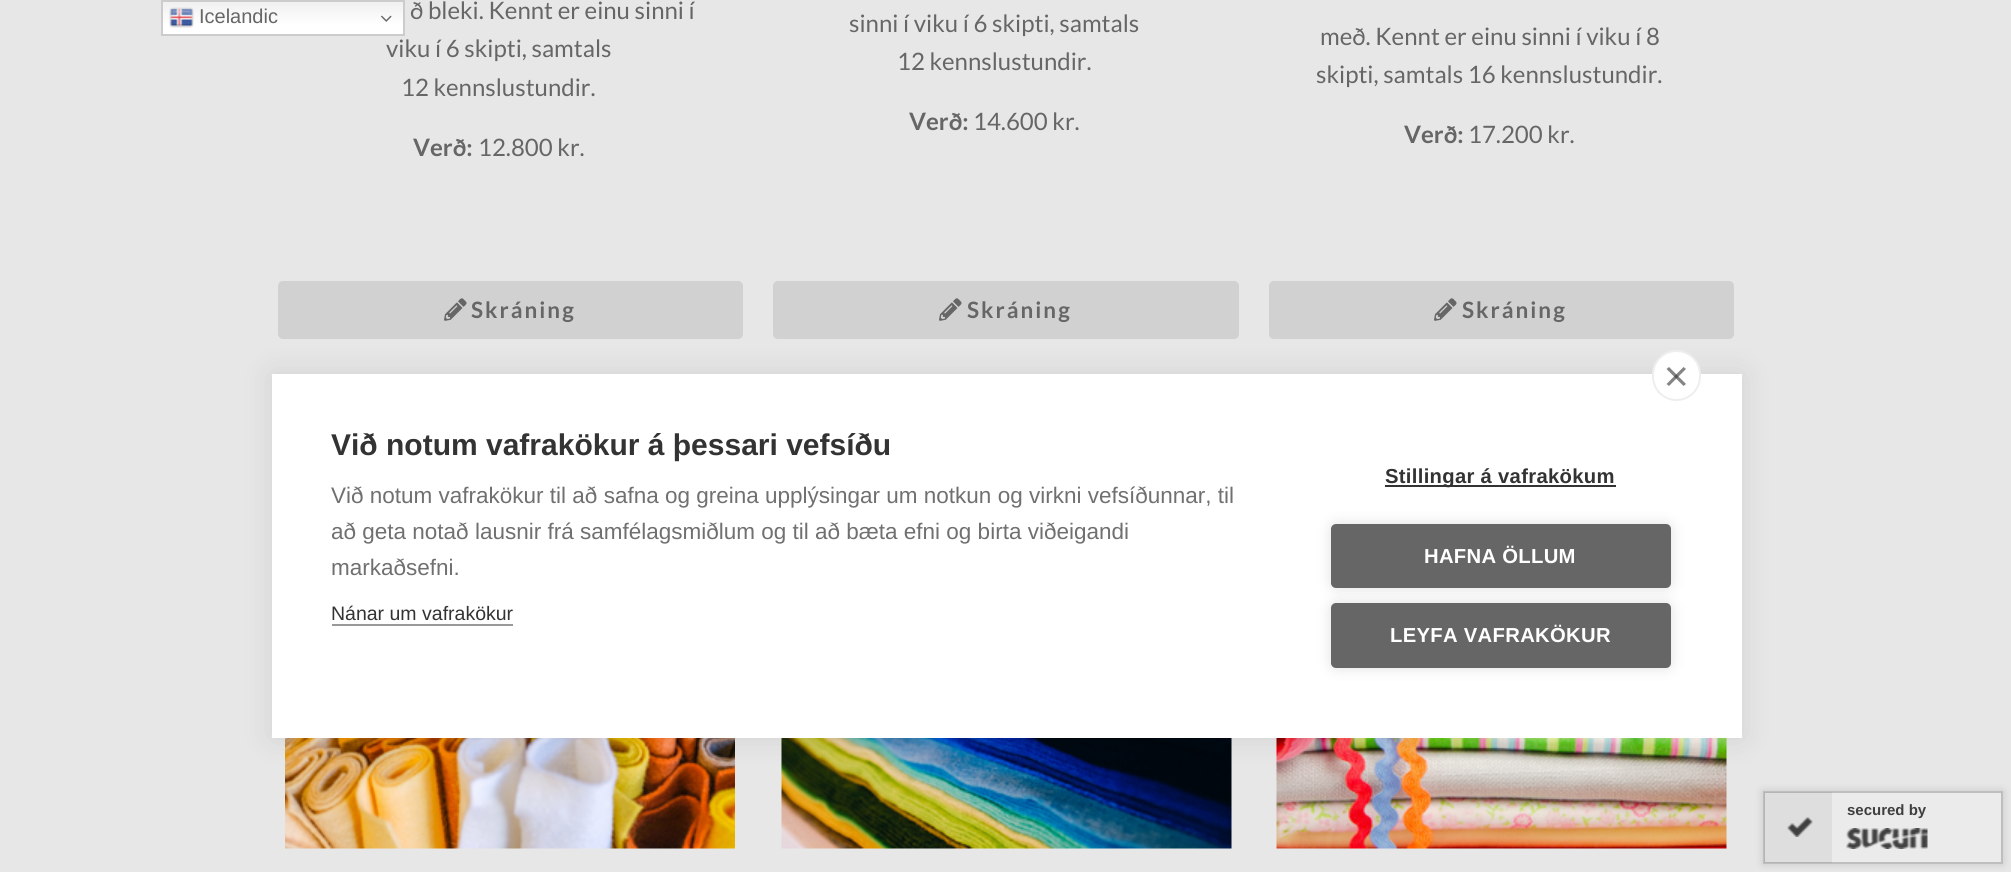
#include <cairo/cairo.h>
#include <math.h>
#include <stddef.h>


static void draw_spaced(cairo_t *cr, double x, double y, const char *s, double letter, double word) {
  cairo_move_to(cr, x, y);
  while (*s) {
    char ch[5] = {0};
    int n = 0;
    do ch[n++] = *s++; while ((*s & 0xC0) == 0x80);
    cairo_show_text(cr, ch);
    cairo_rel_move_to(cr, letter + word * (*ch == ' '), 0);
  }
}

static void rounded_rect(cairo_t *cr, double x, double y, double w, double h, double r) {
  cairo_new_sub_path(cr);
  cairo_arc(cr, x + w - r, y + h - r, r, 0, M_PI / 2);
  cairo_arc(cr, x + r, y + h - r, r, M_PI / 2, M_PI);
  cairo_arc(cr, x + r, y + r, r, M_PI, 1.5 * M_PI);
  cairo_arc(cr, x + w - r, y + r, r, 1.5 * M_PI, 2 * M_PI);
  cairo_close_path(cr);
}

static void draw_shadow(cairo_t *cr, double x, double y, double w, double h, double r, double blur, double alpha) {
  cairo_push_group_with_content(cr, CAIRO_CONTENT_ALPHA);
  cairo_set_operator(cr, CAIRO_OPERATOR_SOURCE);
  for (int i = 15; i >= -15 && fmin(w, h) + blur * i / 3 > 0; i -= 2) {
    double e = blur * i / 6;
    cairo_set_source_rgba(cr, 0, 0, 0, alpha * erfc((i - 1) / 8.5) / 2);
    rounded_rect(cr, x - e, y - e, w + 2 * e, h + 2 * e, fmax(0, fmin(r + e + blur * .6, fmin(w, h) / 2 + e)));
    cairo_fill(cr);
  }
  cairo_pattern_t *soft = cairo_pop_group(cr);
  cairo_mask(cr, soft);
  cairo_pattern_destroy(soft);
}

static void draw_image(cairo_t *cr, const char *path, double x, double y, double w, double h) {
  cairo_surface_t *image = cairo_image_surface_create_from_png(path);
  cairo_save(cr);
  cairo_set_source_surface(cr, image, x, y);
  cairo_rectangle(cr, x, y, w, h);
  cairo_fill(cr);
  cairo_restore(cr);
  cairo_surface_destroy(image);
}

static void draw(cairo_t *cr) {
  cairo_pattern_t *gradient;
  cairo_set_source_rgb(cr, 1, 1, 1);
  cairo_paint(cr);
  gradient = cairo_pattern_create_radial(0, 0, 0, 0, 0, 1);
  cairo_pattern_set_matrix(gradient, &(cairo_matrix_t){1.0 / 1422, 0, 0, 1.0 / 2543, -1.0 * 1006 / 1422, -1.0 * 393 / 2543});
  cairo_pattern_add_color_stop_rgba(gradient, 1, 231 / 255.0, 231 / 255.0, 231 / 255.0, 1);
  cairo_pattern_add_color_stop_rgba(gradient, 1, 1, 1, 1, 1);
  cairo_set_source(cr, gradient);
  cairo_pattern_destroy(gradient);
  cairo_rectangle(cr, 0, 0, 2011, 872);
  cairo_fill(cr);
  gradient = cairo_pattern_create_linear(283, 0, 283, 36);
  cairo_pattern_add_color_stop_rgba(gradient, 0, 239 / 255.0, 239 / 255.0, 239 / 255.0, 1);
  cairo_pattern_add_color_stop_rgba(gradient, 0.7, 1, 1, 1, 1);
  cairo_set_source(cr, gradient);
  cairo_pattern_destroy(gradient);
  cairo_rectangle(cr, 163, 2, 240, 32);
  cairo_fill(cr);
  cairo_rectangle(cr, 162, 1, 242, 34);
  cairo_set_source_rgb(cr, 204 / 255.0, 204 / 255.0, 204 / 255.0);
  cairo_stroke(cr);
  draw_image(cr, "images/1.png", 169, 7, 25, 21);
  draw_image(cr, "images/2.png", 381, 15, 11, 7);
  cairo_set_source_rgb(cr, 209 / 255.0, 209 / 255.0, 209 / 255.0);
  rounded_rect(cr, 278, 281, 465, 58, 5);
  cairo_fill(cr);
  draw_image(cr, "images/3.png", 444, 298, 23, 23);
  rounded_rect(cr, 773, 281, 466, 58, 5);
  cairo_fill(cr);
  draw_image(cr, "images/3.png", 939, 298, 23, 23);
  rounded_rect(cr, 1269, 281, 465, 58, 5);
  cairo_fill(cr);
  draw_image(cr, "images/3.png", 1434, 298, 23, 23);
  draw_image(cr, "images/4.png", 285, 738, 450, 111);
  draw_image(cr, "images/5.png", 781, 738, 451, 111);
  draw_image(cr, "images/6.png", 1276, 738, 451, 111);
  cairo_set_source_rgb(cr, 0, 0, 0);
  draw_shadow(cr, 272, 374, 1470, 364, 0, 15, 0.1);
  cairo_set_source_rgb(cr, 1, 1, 1);
  cairo_rectangle(cr, 272, 374, 1470, 364);
  cairo_fill(cr);
  rounded_rect(cr, 1653, 351, 47, 49, 23.5);
  cairo_fill_preserve(cr);
  cairo_set_source_rgb(cr, 238 / 255.0, 238 / 255.0, 238 / 255.0);
  cairo_stroke(cr);
  cairo_set_source_rgb(cr, 133 / 255.0, 133 / 255.0, 133 / 255.0);
  cairo_new_path(cr);
  cairo_move_to(cr, 1666.5, 384);
  cairo_line_to(cr, 1683.5, 367);
  cairo_line_to(cr, 1686, 369);
  cairo_line_to(cr, 1669, 386);
  cairo_close_path(cr);
  cairo_fill(cr);
  cairo_set_source_rgba(cr, 51 / 255.0, 51 / 255.0, 51 / 255.0, 0.6);
  cairo_new_path(cr);
  cairo_move_to(cr, 1669, 367);
  cairo_line_to(cr, 1686, 384);
  cairo_line_to(cr, 1683.5, 386);
  cairo_line_to(cr, 1666.5, 369);
  cairo_close_path(cr);
  cairo_fill(cr);
  cairo_set_source_rgb(cr, 153 / 255.0, 153 / 255.0, 153 / 255.0);
  cairo_rectangle(cr, 332, 624, 181, 2);
  cairo_fill(cr);
  cairo_set_source_rgb(cr, 51 / 255.0, 51 / 255.0, 51 / 255.0);
  cairo_rectangle(cr, 1385, 485, 231, 2);
  cairo_fill(cr);
  cairo_set_source_rgb(cr, 0, 0, 0);
  draw_shadow(cr, 1331, 524, 340, 64, 5, 7.5, 0.12);
  cairo_set_source_rgb(cr, 102 / 255.0, 102 / 255.0, 102 / 255.0);
  rounded_rect(cr, 1331, 524, 340, 64, 5);
  cairo_fill(cr);
  cairo_set_source_rgb(cr, 0, 0, 0);
  draw_shadow(cr, 1331, 603, 340, 65, 5, 7.5, 0.12);
  cairo_set_source_rgb(cr, 102 / 255.0, 102 / 255.0, 102 / 255.0);
  rounded_rect(cr, 1331, 603, 340, 65, 5);
  cairo_fill(cr);
  cairo_set_source_rgb(cr, 0, 0, 0);
  draw_shadow(cr, 1763, 791, 240, 73, 0, 4.5, 0.14);
  cairo_set_source_rgb(cr, 235 / 255.0, 235 / 255.0, 235 / 255.0);
  cairo_rectangle(cr, 1764, 792, 238, 71);
  cairo_fill_preserve(cr);
  cairo_set_source_rgb(cr, 190 / 255.0, 190 / 255.0, 190 / 255.0);
  cairo_stroke(cr);
  cairo_set_source_rgba(cr, 64 / 255.0, 64 / 255.0, 64 / 255.0, 0.08);
  cairo_rectangle(cr, 1764, 792, 68, 71);
  cairo_fill(cr);
  draw_image(cr, "images/7.png", 1787, 817, 26, 20);
  draw_image(cr, "images/8.png", 1846, 828, 82, 21);
  cairo_select_font_face(cr, "Liberation Sans", CAIRO_FONT_SLANT_NORMAL, CAIRO_FONT_WEIGHT_NORMAL);
  cairo_set_font_size(cr, 20);
  cairo_set_source_rgb(cr, 102 / 255.0, 102 / 255.0, 102 / 255.0);
  cairo_move_to(cr, 199, 23);
  cairo_show_text(cr, "Icelandic");
  cairo_select_font_face(cr, "Lato", CAIRO_FONT_SLANT_NORMAL, CAIRO_FONT_WEIGHT_NORMAL);
  cairo_set_font_size(cr, 24);
  cairo_move_to(cr, 410, 19);
  cairo_show_text(cr, "ð bleki. Kennt er einu sinni í");
  cairo_move_to(cr, 386, 57);
  cairo_show_text(cr, "viku í 6 skipti, samtals");
  cairo_move_to(cr, 401, 96);
  cairo_show_text(cr, "12 kennslustundir.");
  cairo_select_font_face(cr, "Lato", CAIRO_FONT_SLANT_NORMAL, CAIRO_FONT_WEIGHT_BOLD);
  cairo_move_to(cr, 413, 156);
  cairo_show_text(cr, "Verð:");
  cairo_select_font_face(cr, "Lato", CAIRO_FONT_SLANT_NORMAL, CAIRO_FONT_WEIGHT_NORMAL);
  cairo_move_to(cr, 478, 156);
  cairo_show_text(cr, "12.800 kr.");
  cairo_select_font_face(cr, "Lato", CAIRO_FONT_SLANT_NORMAL, CAIRO_FONT_WEIGHT_BOLD);
  cairo_set_font_size(cr, 22.5);
  draw_spaced(cr, 471, 318, "Skráning", 2, 0);
  cairo_select_font_face(cr, "Lato", CAIRO_FONT_SLANT_NORMAL, CAIRO_FONT_WEIGHT_NORMAL);
  cairo_set_font_size(cr, 24);
  cairo_move_to(cr, 849, 32);
  cairo_show_text(cr, "sinni í viku í 6 skipti, samtals");
  cairo_move_to(cr, 897, 70);
  cairo_show_text(cr, "12 kennslustundir.");
  cairo_select_font_face(cr, "Lato", CAIRO_FONT_SLANT_NORMAL, CAIRO_FONT_WEIGHT_BOLD);
  cairo_move_to(cr, 909, 130);
  cairo_show_text(cr, "Verð:");
  cairo_select_font_face(cr, "Lato", CAIRO_FONT_SLANT_NORMAL, CAIRO_FONT_WEIGHT_NORMAL);
  cairo_move_to(cr, 973, 130);
  cairo_show_text(cr, "14.600 kr.");
  cairo_select_font_face(cr, "Lato", CAIRO_FONT_SLANT_NORMAL, CAIRO_FONT_WEIGHT_BOLD);
  cairo_set_font_size(cr, 22.5);
  draw_spaced(cr, 967, 318, "Skráning", 2, 0);
  cairo_select_font_face(cr, "Lato", CAIRO_FONT_SLANT_NORMAL, CAIRO_FONT_WEIGHT_NORMAL);
  cairo_set_font_size(cr, 24);
  cairo_move_to(cr, 1320, 45);
  cairo_show_text(cr, "með. Kennt er einu sinni í viku í 8");
  cairo_move_to(cr, 1316, 83);
  cairo_show_text(cr, "skipti, samtals 16 kennslustundir.");
  cairo_select_font_face(cr, "Lato", CAIRO_FONT_SLANT_NORMAL, CAIRO_FONT_WEIGHT_BOLD);
  cairo_move_to(cr, 1404, 143);
  cairo_show_text(cr, "Verð:");
  cairo_select_font_face(cr, "Lato", CAIRO_FONT_SLANT_NORMAL, CAIRO_FONT_WEIGHT_NORMAL);
  cairo_move_to(cr, 1468, 143);
  cairo_show_text(cr, "17.200 kr.");
  cairo_select_font_face(cr, "Lato", CAIRO_FONT_SLANT_NORMAL, CAIRO_FONT_WEIGHT_BOLD);
  cairo_set_font_size(cr, 22.5);
  draw_spaced(cr, 1462, 318, "Skráning", 2, 0);
  cairo_select_font_face(cr, "Liberation Sans", CAIRO_FONT_SLANT_NORMAL, CAIRO_FONT_WEIGHT_BOLD);
  cairo_set_font_size(cr, 30);
  cairo_set_source_rgb(cr, 51 / 255.0, 51 / 255.0, 51 / 255.0);
  cairo_move_to(cr, 331, 455);
  cairo_show_text(cr, "Við notum vafrakökur á þessari vefsíðu");
  cairo_select_font_face(cr, "Liberation Sans", CAIRO_FONT_SLANT_NORMAL, CAIRO_FONT_WEIGHT_NORMAL);
  cairo_set_font_size(cr, 22.5);
  cairo_set_source_rgb(cr, 112 / 255.0, 112 / 255.0, 112 / 255.0);
  cairo_move_to(cr, 331, 503);
  cairo_show_text(cr, "Við notum vafrakökur til að safna og greina upplýsingar um notkun og virkni vefsíðunnar, til");
  cairo_move_to(cr, 331, 539);
  cairo_show_text(cr, "að geta notað lausnir frá samfélagsmiðlum og til að bæta efni og birta viðeigandi");
  cairo_move_to(cr, 331, 575);
  cairo_show_text(cr, "markaðsefni.");
  cairo_set_font_size(cr, 19.5);
  cairo_set_source_rgb(cr, 51 / 255.0, 51 / 255.0, 51 / 255.0);
  cairo_move_to(cr, 331, 620);
  cairo_show_text(cr, "Nánar um vafrakökur");
  cairo_select_font_face(cr, "Liberation Sans", CAIRO_FONT_SLANT_NORMAL, CAIRO_FONT_WEIGHT_BOLD);
  cairo_set_font_size(cr, 20.25);
  draw_spaced(cr, 1385, 483, "Stillingar á vafrakökum", 0.3, 0);
  cairo_set_source_rgb(cr, 1, 1, 1);
  draw_spaced(cr, 1424, 563, "HAFNA ÖLLUM", 0.3, 0);
  draw_spaced(cr, 1390, 642, "LEYFA VAFRAKÖKUR", 0.3, 0);
  cairo_set_font_size(cr, 15);
  cairo_set_source_rgb(cr, 63 / 255.0, 63 / 255.0, 63 / 255.0);
  cairo_move_to(cr, 1847, 815);
  cairo_show_text(cr, "secured by");
}

int main(void) {
  cairo_surface_t *surface = cairo_image_surface_create(CAIRO_FORMAT_RGB24, 2011, 872);
  cairo_t *cr = cairo_create(surface);
  cairo_font_options_t *options = cairo_font_options_create();
  cairo_font_options_set_hint_metrics(options, CAIRO_HINT_METRICS_OFF);
  cairo_font_options_set_hint_style(options, CAIRO_HINT_STYLE_NONE);
  cairo_set_font_options(cr, options);
  cairo_set_miter_limit(cr, 4);
  draw(cr);
  cairo_surface_write_to_png(surface, "out.png");
  cairo_font_options_destroy(options);
  cairo_destroy(cr);
  cairo_surface_destroy(surface);
  return 0;
}
